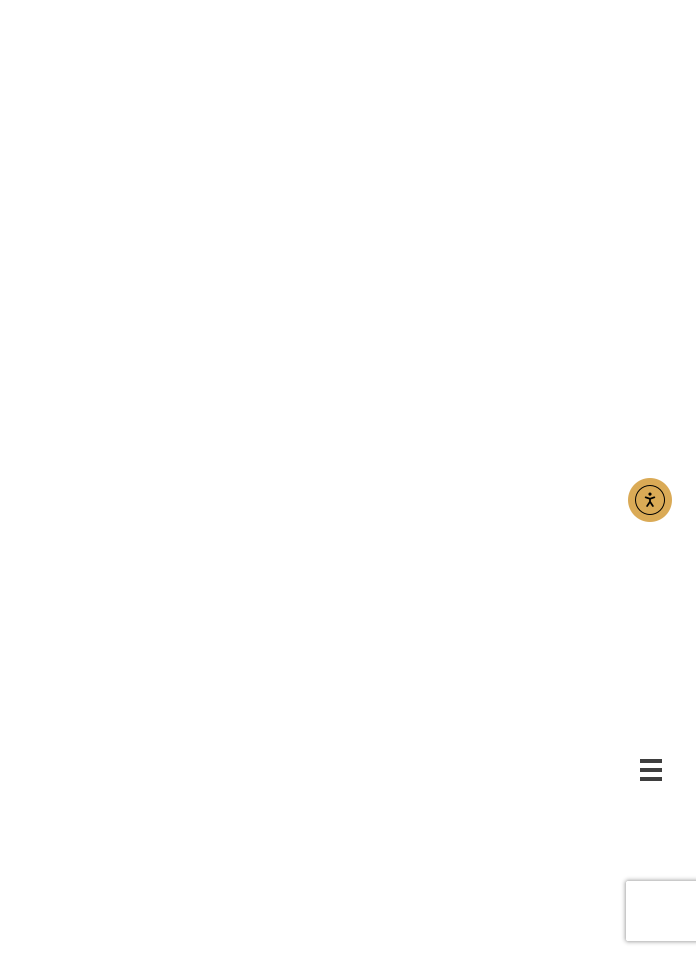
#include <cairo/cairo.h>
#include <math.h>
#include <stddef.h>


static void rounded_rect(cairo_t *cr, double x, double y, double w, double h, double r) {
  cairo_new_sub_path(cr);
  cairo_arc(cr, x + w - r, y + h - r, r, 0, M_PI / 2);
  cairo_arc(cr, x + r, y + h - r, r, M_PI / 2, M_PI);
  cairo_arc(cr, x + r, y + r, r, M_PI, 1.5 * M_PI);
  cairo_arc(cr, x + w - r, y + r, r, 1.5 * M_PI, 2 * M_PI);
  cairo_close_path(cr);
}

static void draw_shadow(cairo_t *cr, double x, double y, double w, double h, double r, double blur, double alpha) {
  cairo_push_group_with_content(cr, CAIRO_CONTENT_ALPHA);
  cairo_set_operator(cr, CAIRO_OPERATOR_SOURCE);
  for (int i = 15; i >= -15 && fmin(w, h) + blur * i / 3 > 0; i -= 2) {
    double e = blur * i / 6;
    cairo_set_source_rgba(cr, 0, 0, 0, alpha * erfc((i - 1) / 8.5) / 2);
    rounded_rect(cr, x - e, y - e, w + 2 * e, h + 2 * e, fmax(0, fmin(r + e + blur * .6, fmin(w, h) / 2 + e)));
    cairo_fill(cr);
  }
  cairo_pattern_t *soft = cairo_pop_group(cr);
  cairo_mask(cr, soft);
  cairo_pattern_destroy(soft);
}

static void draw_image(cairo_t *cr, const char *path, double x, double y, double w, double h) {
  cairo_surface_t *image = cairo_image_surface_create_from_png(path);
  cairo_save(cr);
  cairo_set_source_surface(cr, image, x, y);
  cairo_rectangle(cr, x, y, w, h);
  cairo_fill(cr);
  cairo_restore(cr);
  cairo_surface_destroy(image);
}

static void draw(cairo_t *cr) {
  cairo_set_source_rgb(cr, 1, 1, 1);
  cairo_paint(cr);
  cairo_set_source_rgb(cr, 218 / 255.0, 170 / 255.0, 86 / 255.0);
  cairo_arc(cr, 650, 500, 22, 0, 2 * M_PI);
  cairo_fill(cr);
  cairo_arc(cr, 650, 500, 14.5, 0, 2 * M_PI);
  cairo_set_source_rgb(cr, 0, 0, 0);
  cairo_set_line_width(cr, 1);
  cairo_stroke(cr);
  draw_image(cr, "images/1.png", 644, 492, 12, 15);
  cairo_set_source_rgb(cr, 62 / 255.0, 62 / 255.0, 62 / 255.0);
  cairo_rectangle(cr, 640, 759, 22, 4);
  cairo_fill(cr);
  cairo_rectangle(cr, 640, 768, 22, 4);
  cairo_fill(cr);
  cairo_rectangle(cr, 640, 777, 22, 4);
  cairo_fill(cr);
  cairo_save(cr);
  cairo_set_fill_rule(cr, CAIRO_FILL_RULE_EVEN_ODD);
  cairo_new_path(cr);
  cairo_move_to(cr, 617, 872);
  cairo_line_to(cr, 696, 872);
  cairo_line_to(cr, 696, 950);
  cairo_line_to(cr, 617, 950);
  cairo_close_path(cr);
  cairo_move_to(cr, 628, 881);
  cairo_line_to(cr, 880, 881);
  cairo_curve_to(cr, 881, 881, 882, 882, 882, 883);
  cairo_line_to(cr, 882, 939);
  cairo_curve_to(cr, 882, 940, 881, 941, 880, 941);
  cairo_line_to(cr, 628, 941);
  cairo_curve_to(cr, 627, 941, 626, 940, 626, 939);
  cairo_line_to(cr, 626, 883);
  cairo_curve_to(cr, 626, 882, 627, 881, 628, 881);
  cairo_close_path(cr);
  cairo_clip(cr);
  cairo_set_source_rgb(cr, 128 / 255.0, 128 / 255.0, 128 / 255.0);
  draw_shadow(cr, 626, 881, 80, 60, 2, 2.5, 1);
  cairo_restore(cr);
}

int main(void) {
  cairo_surface_t *surface = cairo_image_surface_create(CAIRO_FORMAT_RGB24, 696, 955);
  cairo_t *cr = cairo_create(surface);
  cairo_font_options_t *options = cairo_font_options_create();
  cairo_font_options_set_hint_metrics(options, CAIRO_HINT_METRICS_OFF);
  cairo_font_options_set_hint_style(options, CAIRO_HINT_STYLE_NONE);
  cairo_set_font_options(cr, options);
  cairo_set_miter_limit(cr, 4);
  draw(cr);
  cairo_surface_write_to_png(surface, "out.png");
  cairo_font_options_destroy(options);
  cairo_destroy(cr);
  cairo_surface_destroy(surface);
  return 0;
}
